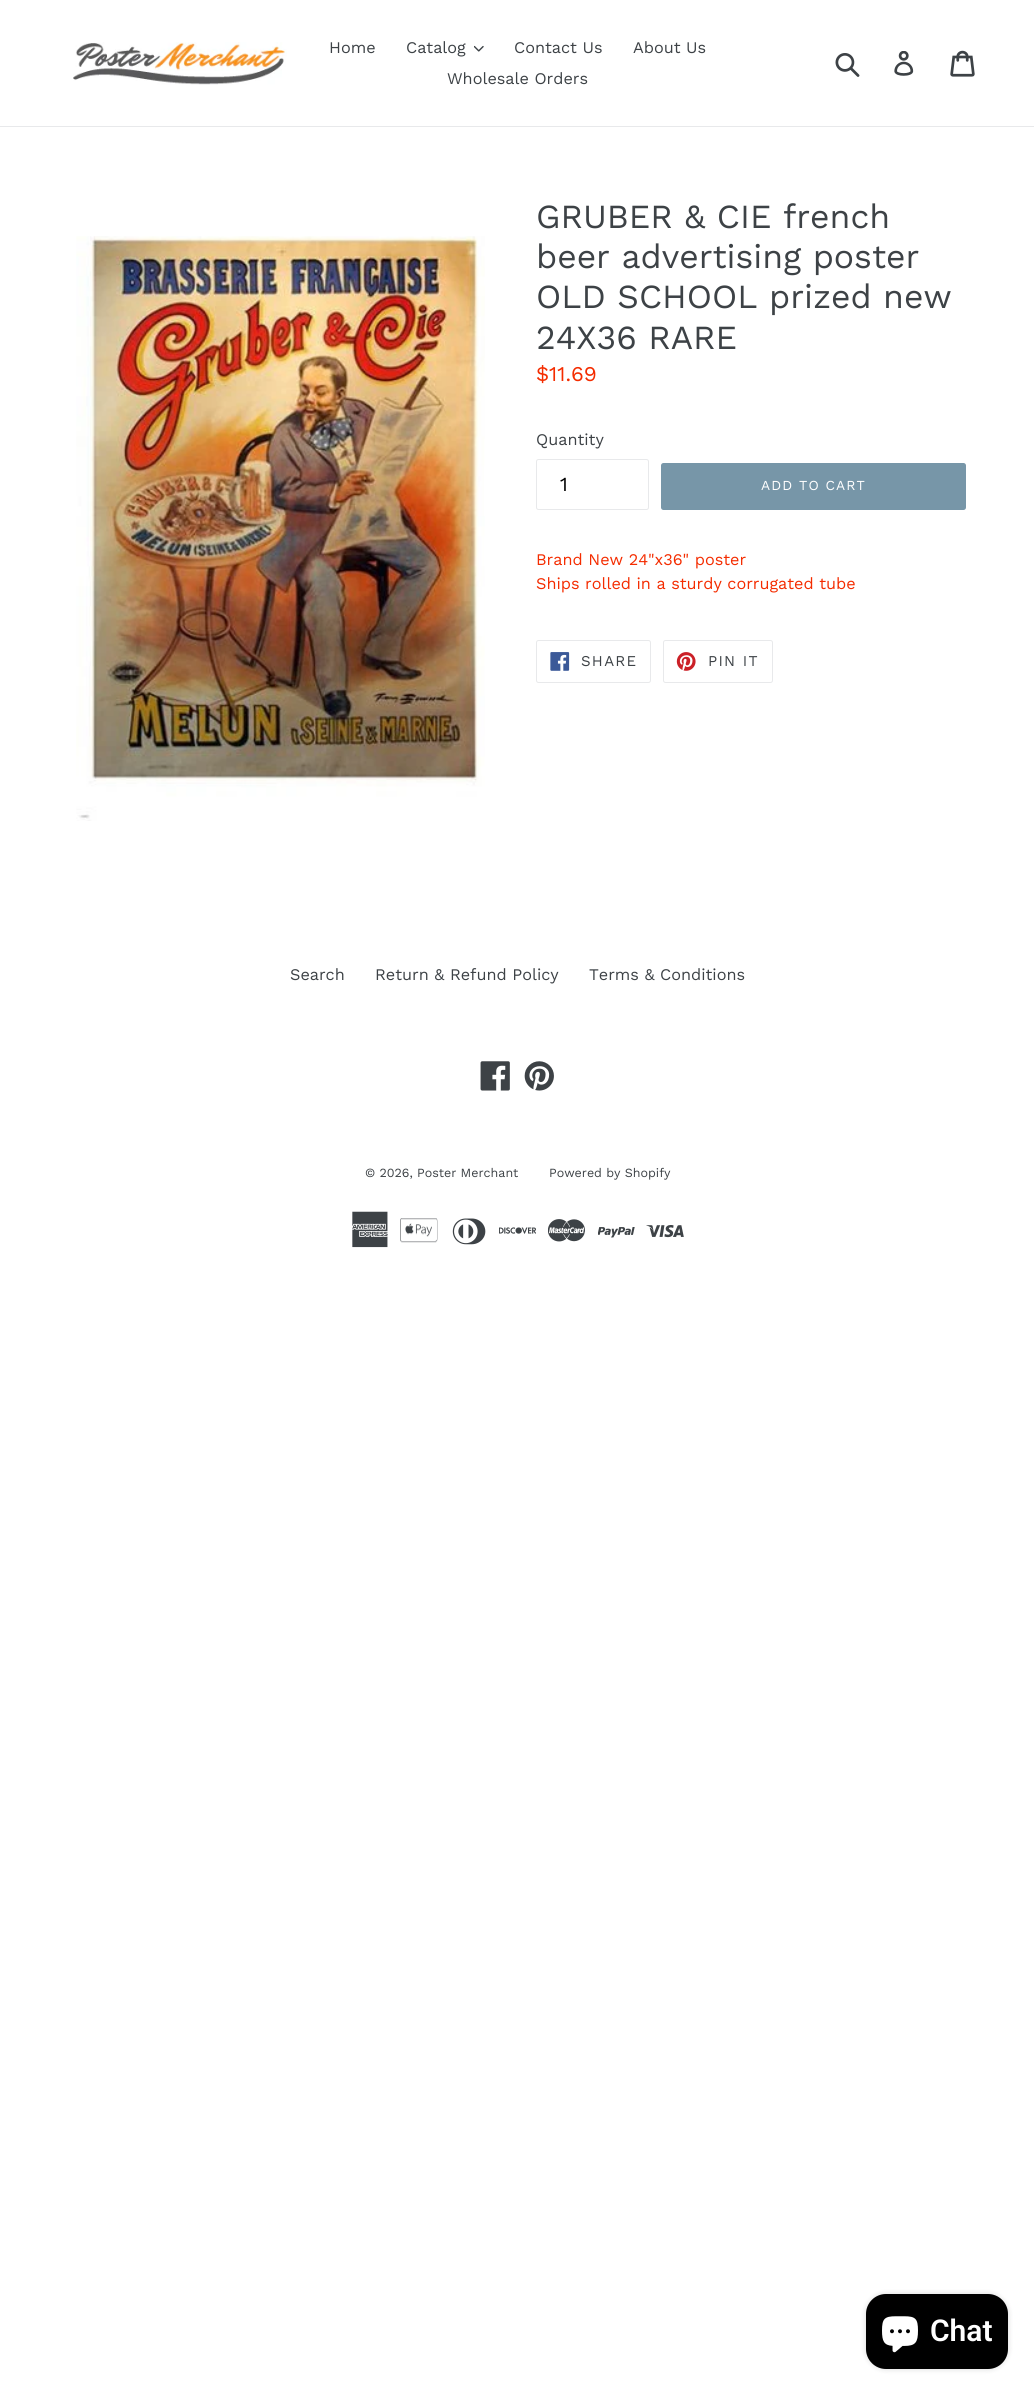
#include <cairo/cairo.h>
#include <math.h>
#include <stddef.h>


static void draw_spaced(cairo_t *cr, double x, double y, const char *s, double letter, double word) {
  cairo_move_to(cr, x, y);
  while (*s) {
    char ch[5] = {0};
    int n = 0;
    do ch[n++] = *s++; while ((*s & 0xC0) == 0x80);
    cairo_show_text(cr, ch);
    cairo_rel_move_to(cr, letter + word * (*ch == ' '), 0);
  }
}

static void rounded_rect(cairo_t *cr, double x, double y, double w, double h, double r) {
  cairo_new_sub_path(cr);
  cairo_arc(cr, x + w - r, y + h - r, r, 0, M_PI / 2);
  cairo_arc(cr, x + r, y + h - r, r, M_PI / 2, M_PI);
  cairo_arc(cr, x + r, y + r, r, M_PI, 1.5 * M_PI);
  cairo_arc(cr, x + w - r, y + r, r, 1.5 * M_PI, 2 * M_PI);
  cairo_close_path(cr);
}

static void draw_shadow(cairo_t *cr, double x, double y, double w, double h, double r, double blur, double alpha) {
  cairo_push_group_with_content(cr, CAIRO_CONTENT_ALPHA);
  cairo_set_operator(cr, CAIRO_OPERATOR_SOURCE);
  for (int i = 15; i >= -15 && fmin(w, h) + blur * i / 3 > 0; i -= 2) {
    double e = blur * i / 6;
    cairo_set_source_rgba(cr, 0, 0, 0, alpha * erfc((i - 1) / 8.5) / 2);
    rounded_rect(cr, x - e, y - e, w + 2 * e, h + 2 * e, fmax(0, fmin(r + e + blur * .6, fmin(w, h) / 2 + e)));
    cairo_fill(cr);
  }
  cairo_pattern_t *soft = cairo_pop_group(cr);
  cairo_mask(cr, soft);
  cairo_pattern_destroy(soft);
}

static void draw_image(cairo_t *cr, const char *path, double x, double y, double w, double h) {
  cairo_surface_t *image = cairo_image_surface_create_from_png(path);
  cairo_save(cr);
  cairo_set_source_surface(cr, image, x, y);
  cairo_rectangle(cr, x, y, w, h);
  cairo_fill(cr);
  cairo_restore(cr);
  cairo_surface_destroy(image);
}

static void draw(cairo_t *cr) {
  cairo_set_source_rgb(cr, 1, 1, 1);
  cairo_paint(cr);
  cairo_set_source_rgb(cr, 232 / 255.0, 233 / 255.0, 235 / 255.0);
  cairo_rectangle(cr, 0, 126, 1034, 1);
  cairo_fill(cr);
  draw_image(cr, "images/1.png", 73, 42, 214, 43);
  draw_image(cr, "images/2.png", 474, 45, 10, 7);
  draw_image(cr, "images/3.png", 835, 53, 25, 24);
  draw_image(cr, "images/4.png", 894, 51, 20, 25);
  draw_image(cr, "images/5.png", 950, 50, 25, 27);
  draw_image(cr, "images/6.png", 76, 236, 409, 585);
  rounded_rect(cr, 536.5, 459.5, 112, 50, 2);
  cairo_set_line_width(cr, 1);
  cairo_stroke(cr);
  cairo_set_source_rgb(cr, 119 / 255.0, 150 / 255.0, 168 / 255.0);
  rounded_rect(cr, 661, 463, 305, 47, 2.5);
  cairo_fill(cr);
  rounded_rect(cr, 536.5, 640.5, 114, 42, 2);
  cairo_set_source_rgb(cr, 232 / 255.0, 233 / 255.0, 235 / 255.0);
  cairo_stroke(cr);
  draw_image(cr, "images/7.png", 550, 652, 20, 19);
  rounded_rect(cr, 663.5, 640.5, 109, 42, 2);
  cairo_stroke(cr);
  draw_image(cr, "images/8.png", 676, 652, 20, 19);
  draw_image(cr, "images/9.png", 480, 1061, 30, 30);
  draw_image(cr, "images/10.png", 524, 1061, 30, 30);
  draw_image(cr, "images/11.png", 352, 1211, 36, 37);
  draw_image(cr, "images/12.png", 400, 1218, 38, 25);
  draw_image(cr, "images/13.png", 452, 1218, 34, 27);
  draw_image(cr, "images/14.png", 499, 1227, 37, 7);
  draw_image(cr, "images/15.png", 548, 1219, 37, 23);
  draw_image(cr, "images/16.png", 598, 1227, 37, 11);
  draw_image(cr, "images/17.png", 646, 1225, 38, 13);
  cairo_set_source_rgb(cr, 0, 0, 0);
  draw_shadow(cr, 866, 2294, 142, 75, 20, 3, 0.15);
  cairo_set_source_rgb(cr, 0, 0, 0);
  rounded_rect(cr, 866, 2294, 142, 75, 20);
  cairo_fill(cr);
  draw_image(cr, "images/18.png", 882, 2316, 36, 37);
  cairo_select_font_face(cr, "Work Sans", CAIRO_FONT_SLANT_NORMAL, CAIRO_FONT_WEIGHT_NORMAL);
  cairo_set_font_size(cr, 16.25);
  cairo_set_source_rgb(cr, 61 / 255.0, 66 / 255.0, 70 / 255.0);
  cairo_move_to(cr, 329, 53);
  cairo_show_text(cr, "Home");
  cairo_move_to(cr, 406, 53);
  cairo_show_text(cr, "Catalog");
  cairo_move_to(cr, 514, 53);
  cairo_show_text(cr, "Contact Us");
  cairo_move_to(cr, 633, 53);
  cairo_show_text(cr, "About Us");
  cairo_move_to(cr, 447, 84);
  cairo_show_text(cr, "Wholesale Orders");
  cairo_set_font_size(cr, 33.75);
  cairo_move_to(cr, 536, 228);
  cairo_show_text(cr, "GRUBER & CIE french");
  cairo_move_to(cr, 536, 268);
  cairo_show_text(cr, "beer advertising poster");
  cairo_move_to(cr, 536, 308);
  cairo_show_text(cr, "OLD SCHOOL prized new");
  cairo_move_to(cr, 536, 349);
  cairo_show_text(cr, "24X36 RARE");
  cairo_set_font_size(cr, 21);
  cairo_set_source_rgb(cr, 244 / 255.0, 44 / 255.0, 0);
  cairo_move_to(cr, 536, 381);
  cairo_show_text(cr, "$11.69");
  cairo_set_font_size(cr, 16.25);
  cairo_set_source_rgb(cr, 61 / 255.0, 66 / 255.0, 70 / 255.0);
  cairo_move_to(cr, 536, 445);
  cairo_show_text(cr, "Quantity");
  cairo_set_font_size(cr, 20);
  cairo_set_source_rgb(cr, 0, 0, 0);
  cairo_move_to(cr, 560, 491);
  cairo_show_text(cr, "1");
  cairo_set_font_size(cr, 13.75);
  cairo_set_source_rgb(cr, 1, 1, 1);
  draw_spaced(cr, 761, 490, "ADD TO CART", 1.1, 0);
  cairo_set_font_size(cr, 16.25);
  cairo_set_source_rgb(cr, 244 / 255.0, 44 / 255.0, 0);
  cairo_move_to(cr, 536, 565);
  cairo_show_text(cr, "Brand New 24\"x36\" poster");
  cairo_move_to(cr, 536, 589);
  cairo_show_text(cr, "Ships rolled in a sturdy corrugated tube");
  cairo_set_font_size(cr, 15);
  cairo_set_source_rgb(cr, 61 / 255.0, 66 / 255.0, 70 / 255.0);
  draw_spaced(cr, 581, 666, "SHARE", 1.25, 0);
  draw_spaced(cr, 708, 666, "PIN IT", 1.25, 0);
  cairo_set_font_size(cr, 16.25);
  cairo_move_to(cr, 290, 980);
  cairo_show_text(cr, "Search");
  cairo_move_to(cr, 375, 980);
  cairo_show_text(cr, "Return & Refund Policy");
  cairo_move_to(cr, 589, 980);
  cairo_show_text(cr, "Terms & Conditions");
  cairo_set_font_size(cr, 12.5);
  cairo_move_to(cr, 365, 1177);
  cairo_show_text(cr, "© 2026, Poster Merchant");
  cairo_move_to(cr, 549, 1177);
  cairo_show_text(cr, "Powered by Shopify");
  cairo_select_font_face(cr, "Roboto SemiBold", CAIRO_FONT_SLANT_NORMAL, CAIRO_FONT_WEIGHT_NORMAL);
  cairo_set_font_size(cr, 30);
  cairo_set_source_rgb(cr, 1, 1, 1);
  cairo_move_to(cr, 930, 2341);
  cairo_show_text(cr, "Chat");
}

int main(void) {
  cairo_surface_t *surface = cairo_image_surface_create(CAIRO_FORMAT_RGB24, 1034, 2395);
  cairo_t *cr = cairo_create(surface);
  cairo_font_options_t *options = cairo_font_options_create();
  cairo_font_options_set_hint_metrics(options, CAIRO_HINT_METRICS_OFF);
  cairo_font_options_set_hint_style(options, CAIRO_HINT_STYLE_NONE);
  cairo_set_font_options(cr, options);
  cairo_set_miter_limit(cr, 4);
  draw(cr);
  cairo_surface_write_to_png(surface, "out.png");
  cairo_font_options_destroy(options);
  cairo_destroy(cr);
  cairo_surface_destroy(surface);
  return 0;
}
